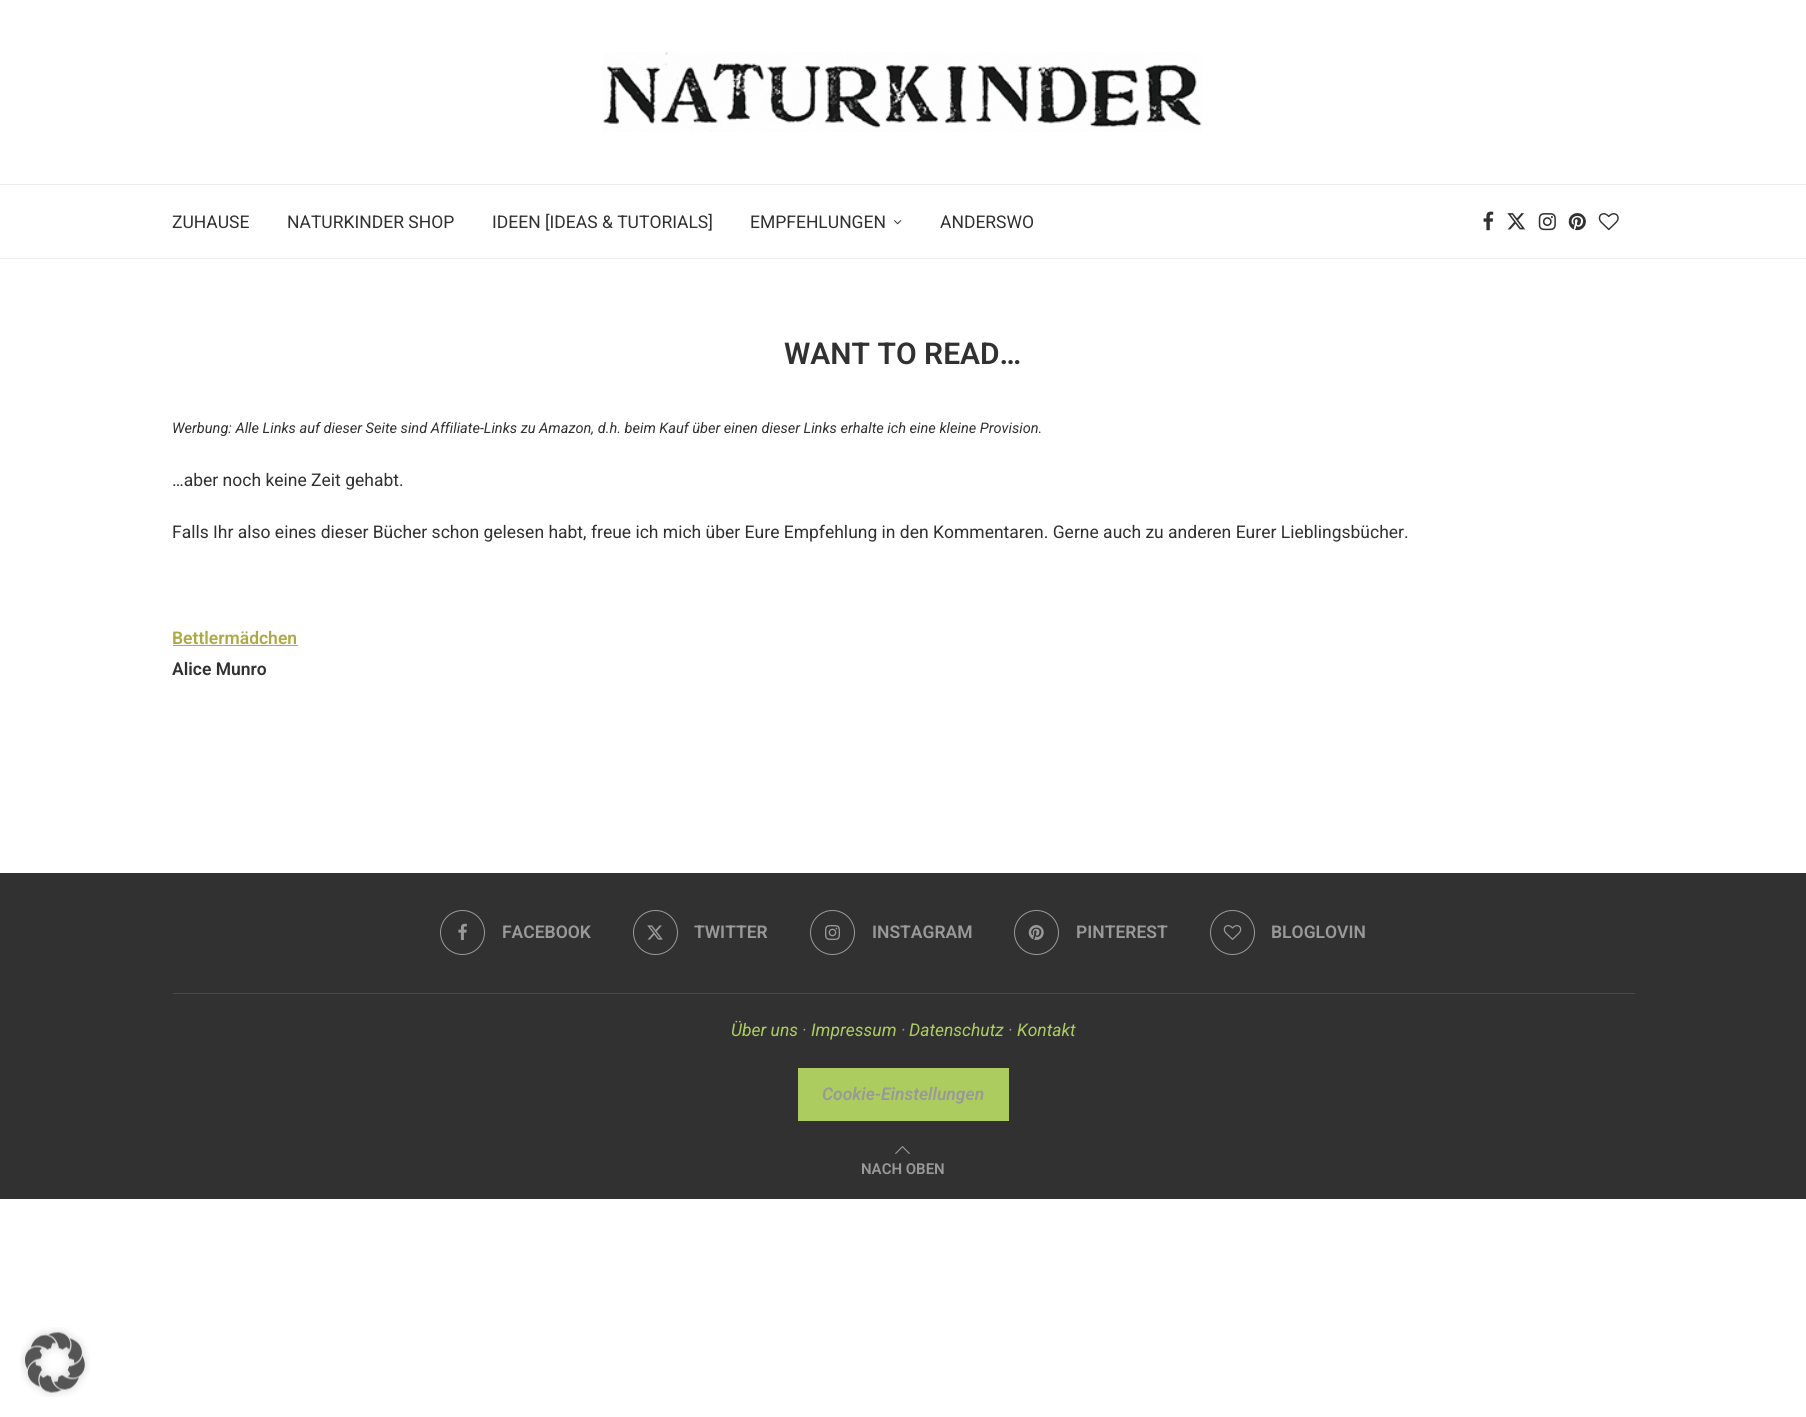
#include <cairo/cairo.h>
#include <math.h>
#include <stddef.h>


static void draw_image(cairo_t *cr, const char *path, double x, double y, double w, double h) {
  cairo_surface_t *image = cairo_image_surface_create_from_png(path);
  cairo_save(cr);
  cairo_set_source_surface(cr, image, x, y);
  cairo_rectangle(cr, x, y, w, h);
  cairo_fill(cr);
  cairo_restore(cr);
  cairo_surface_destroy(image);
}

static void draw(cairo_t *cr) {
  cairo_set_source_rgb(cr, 1, 1, 1);
  cairo_paint(cr);
  draw_image(cr, "images/1.png", 603, 52, 599, 80);
  cairo_set_source_rgb(cr, 236 / 255.0, 236 / 255.0, 236 / 255.0);
  cairo_rectangle(cr, 0, 184, 1806, 1);
  cairo_fill(cr);
  cairo_rectangle(cr, 0, 258, 1806, 1);
  cairo_fill(cr);
  draw_image(cr, "images/2.png", 894, 220, 8, 5);
  draw_image(cr, "images/3.png", 1483, 211, 11, 20);
  draw_image(cr, "images/4.png", 1507, 213, 19, 17);
  draw_image(cr, "images/5.png", 1538, 213, 18, 18);
  draw_image(cr, "images/6.png", 1568, 213, 18, 18);
  draw_image(cr, "images/7.png", 1598, 213, 21, 18);
  cairo_set_source_rgb(cr, 174 / 255.0, 169 / 255.0, 69 / 255.0);
  cairo_rectangle(cr, 173, 645, 125, 1);
  cairo_fill(cr);
  cairo_set_source_rgb(cr, 49 / 255.0, 49 / 255.0, 49 / 255.0);
  cairo_rectangle(cr, 0, 873, 1806, 326);
  cairo_fill(cr);
  cairo_set_source_rgb(cr, 74 / 255.0, 74 / 255.0, 74 / 255.0);
  cairo_rectangle(cr, 173, 993, 1462, 1);
  cairo_fill(cr);
  cairo_arc(cr, 462.5, 932.5, 22, 0, 2 * M_PI);
  cairo_set_source_rgb(cr, 153 / 255.0, 153 / 255.0, 153 / 255.0);
  cairo_set_line_width(cr, 1);
  cairo_stroke(cr);
  draw_image(cr, "images/8.png", 458, 923, 9, 17);
  cairo_arc(cr, 655.5, 932.5, 22, 0, 2 * M_PI);
  cairo_stroke(cr);
  draw_image(cr, "images/9.png", 647, 925, 16, 15);
  cairo_arc(cr, 832.5, 932.5, 22, 0, 2 * M_PI);
  cairo_stroke(cr);
  draw_image(cr, "images/10.png", 825, 925, 15, 15);
  cairo_arc(cr, 1036.5, 932.5, 22, 0, 2 * M_PI);
  cairo_stroke(cr);
  draw_image(cr, "images/11.png", 1028, 925, 16, 15);
  cairo_arc(cr, 1232.5, 932.5, 22, 0, 2 * M_PI);
  cairo_stroke(cr);
  draw_image(cr, "images/12.png", 1223, 925, 19, 15);
  cairo_set_source_rgb(cr, 173 / 255.0, 204 / 255.0, 96 / 255.0);
  cairo_rectangle(cr, 798, 1068, 211, 53);
  cairo_fill(cr);
  draw_image(cr, "images/13.png", 895, 1146, 15, 8);
  draw_image(cr, "images/14.png", 20, 1327, 70, 70);
  cairo_select_font_face(cr, "Roboto", CAIRO_FONT_SLANT_NORMAL, CAIRO_FONT_WEIGHT_NORMAL);
  cairo_set_font_size(cr, 17.5);
  cairo_set_source_rgb(cr, 49 / 255.0, 49 / 255.0, 49 / 255.0);
  cairo_move_to(cr, 172, 228);
  cairo_show_text(cr, "ZUHAUSE");
  cairo_move_to(cr, 287, 228);
  cairo_show_text(cr, "NATURKINDER SHOP");
  cairo_move_to(cr, 492, 228);
  cairo_show_text(cr, "IDEEN [IDEAS & TUTORIALS]");
  cairo_move_to(cr, 750, 228);
  cairo_show_text(cr, "EMPFEHLUNGEN");
  cairo_move_to(cr, 940, 228);
  cairo_show_text(cr, "ANDERSWO");
  cairo_select_font_face(cr, "Roboto SemiBold", CAIRO_FONT_SLANT_NORMAL, CAIRO_FONT_WEIGHT_NORMAL);
  cairo_set_font_size(cr, 30);
  cairo_move_to(cr, 784, 364);
  cairo_show_text(cr, "WANT TO READ…");
  cairo_select_font_face(cr, "Roboto", CAIRO_FONT_SLANT_ITALIC, CAIRO_FONT_WEIGHT_NORMAL);
  cairo_set_font_size(cr, 14.58);
  cairo_move_to(cr, 172, 433);
  cairo_show_text(cr, "Werbung: Alle Links auf dieser Seite sind Affiliate-Links zu Amazon, d.h. beim Kauf über einen dieser Links erhalte ich eine kleine Provision.");
  cairo_select_font_face(cr, "Roboto", CAIRO_FONT_SLANT_NORMAL, CAIRO_FONT_WEIGHT_NORMAL);
  cairo_set_font_size(cr, 17.5);
  cairo_move_to(cr, 172, 486);
  cairo_show_text(cr, "…aber noch keine Zeit gehabt.");
  cairo_move_to(cr, 172, 538);
  cairo_show_text(cr, "Falls Ihr also eines dieser Bücher schon gelesen habt, freue ich mich über Eure Empfehlung in den Kommentaren. Gerne auch zu anderen Eurer Lieblingsbücher.");
  cairo_select_font_face(cr, "Roboto SemiBold", CAIRO_FONT_SLANT_NORMAL, CAIRO_FONT_WEIGHT_NORMAL);
  cairo_set_source_rgb(cr, 174 / 255.0, 169 / 255.0, 69 / 255.0);
  cairo_move_to(cr, 172, 644);
  cairo_show_text(cr, "Bettlermädchen");
  cairo_set_source_rgb(cr, 49 / 255.0, 49 / 255.0, 49 / 255.0);
  cairo_move_to(cr, 172, 675);
  cairo_show_text(cr, "Alice Munro");
  cairo_set_source_rgb(cr, 153 / 255.0, 153 / 255.0, 153 / 255.0);
  cairo_move_to(cr, 502, 938);
  cairo_show_text(cr, "FACEBOOK");
  cairo_move_to(cr, 694, 938);
  cairo_show_text(cr, "TWITTER");
  cairo_move_to(cr, 872, 938);
  cairo_show_text(cr, "INSTAGRAM");
  cairo_move_to(cr, 1076, 938);
  cairo_show_text(cr, "PINTEREST");
  cairo_move_to(cr, 1271, 938);
  cairo_show_text(cr, "BLOGLOVIN");
  cairo_select_font_face(cr, "Roboto", CAIRO_FONT_SLANT_ITALIC, CAIRO_FONT_WEIGHT_NORMAL);
  cairo_set_source_rgb(cr, 173 / 255.0, 204 / 255.0, 96 / 255.0);
  cairo_move_to(cr, 731, 1036);
  cairo_show_text(cr, "Über uns");
  cairo_set_source_rgb(cr, 153 / 255.0, 153 / 255.0, 153 / 255.0);
  cairo_move_to(cr, 802, 1036);
  cairo_show_text(cr, "·");
  cairo_set_source_rgb(cr, 173 / 255.0, 204 / 255.0, 96 / 255.0);
  cairo_move_to(cr, 811, 1036);
  cairo_show_text(cr, "Impressum");
  cairo_set_source_rgb(cr, 153 / 255.0, 153 / 255.0, 153 / 255.0);
  cairo_move_to(cr, 901, 1036);
  cairo_show_text(cr, "·");
  cairo_set_source_rgb(cr, 173 / 255.0, 204 / 255.0, 96 / 255.0);
  cairo_move_to(cr, 909, 1036);
  cairo_show_text(cr, "Datenschutz");
  cairo_set_source_rgb(cr, 153 / 255.0, 153 / 255.0, 153 / 255.0);
  cairo_move_to(cr, 1008, 1036);
  cairo_show_text(cr, "·");
  cairo_set_source_rgb(cr, 173 / 255.0, 204 / 255.0, 96 / 255.0);
  cairo_move_to(cr, 1017, 1036);
  cairo_show_text(cr, "Kontakt");
  cairo_select_font_face(cr, "Roboto SemiBold", CAIRO_FONT_SLANT_ITALIC, CAIRO_FONT_WEIGHT_NORMAL);
  cairo_set_source_rgb(cr, 153 / 255.0, 153 / 255.0, 153 / 255.0);
  cairo_move_to(cr, 822, 1100);
  cairo_show_text(cr, "Cookie-Einstellungen");
  cairo_select_font_face(cr, "Roboto SemiBold", CAIRO_FONT_SLANT_NORMAL, CAIRO_FONT_WEIGHT_NORMAL);
  cairo_set_font_size(cr, 15);
  cairo_move_to(cr, 861, 1174);
  cairo_show_text(cr, "NACH OBEN");
}

int main(void) {
  cairo_surface_t *surface = cairo_image_surface_create(CAIRO_FORMAT_RGB24, 1806, 1417);
  cairo_t *cr = cairo_create(surface);
  cairo_font_options_t *options = cairo_font_options_create();
  cairo_font_options_set_hint_metrics(options, CAIRO_HINT_METRICS_OFF);
  cairo_font_options_set_hint_style(options, CAIRO_HINT_STYLE_NONE);
  cairo_set_font_options(cr, options);
  cairo_set_miter_limit(cr, 4);
  draw(cr);
  cairo_surface_write_to_png(surface, "out.png");
  cairo_font_options_destroy(options);
  cairo_destroy(cr);
  cairo_surface_destroy(surface);
  return 0;
}
